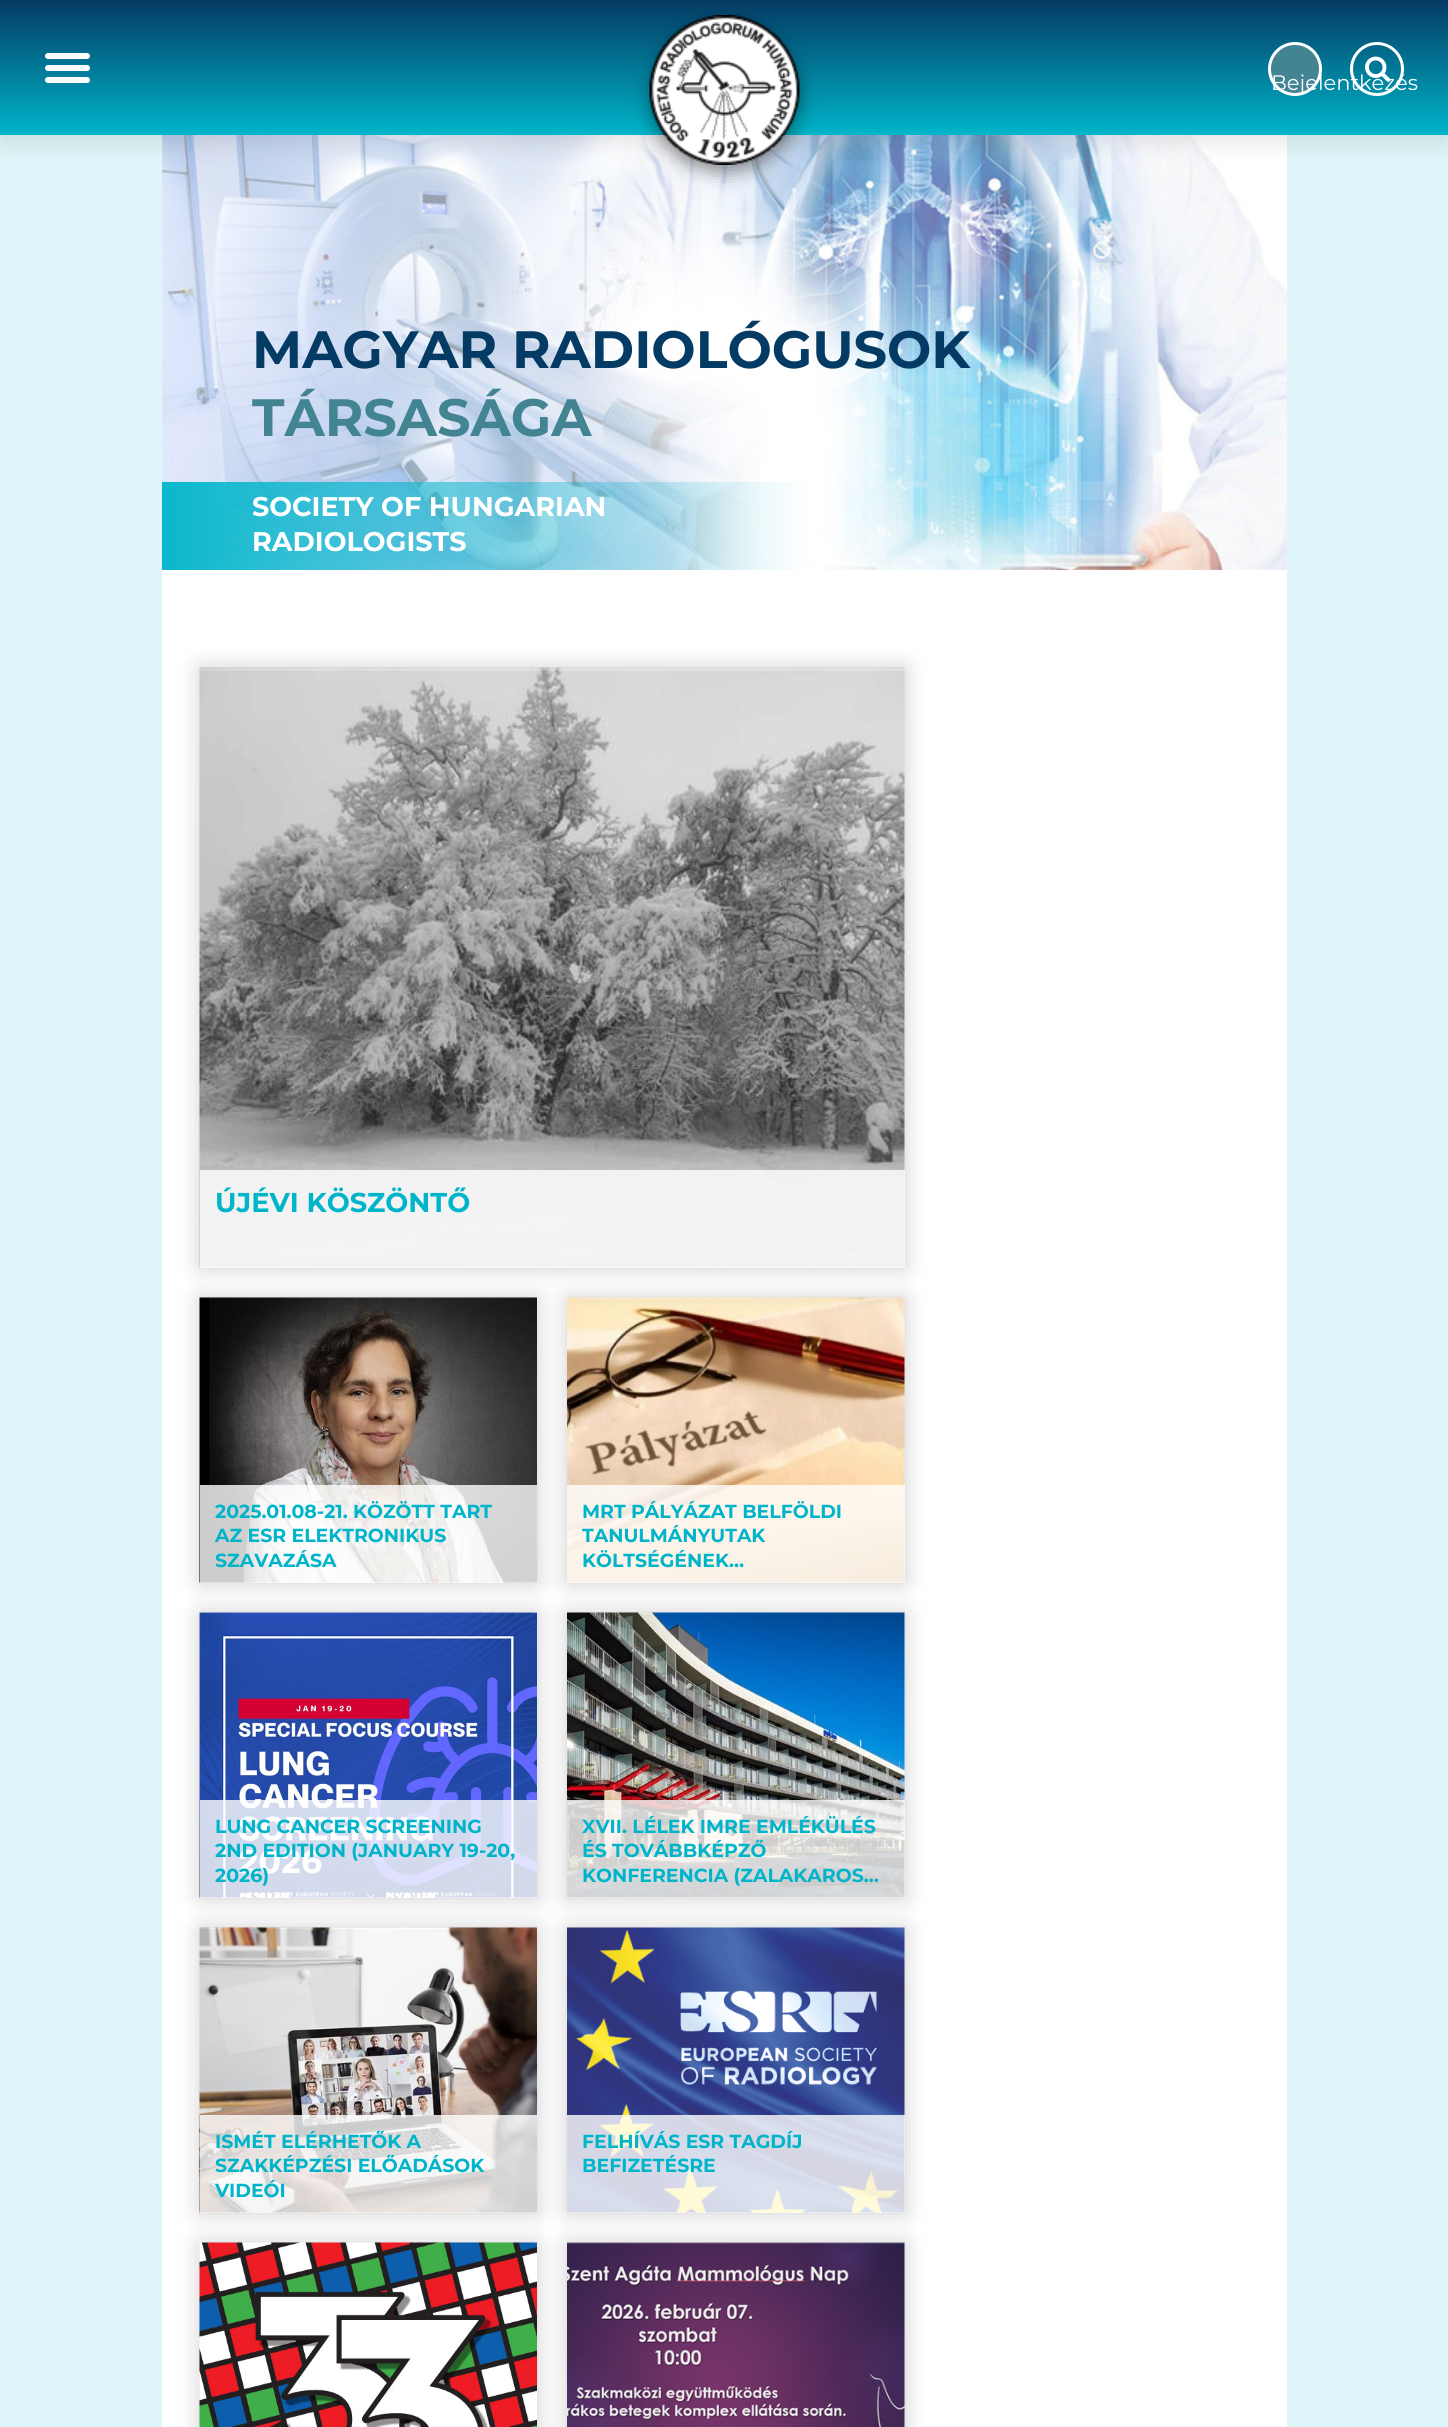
#include <cairo/cairo.h>
#include <math.h>
#include <stddef.h>


static void rounded_rect(cairo_t *cr, double x, double y, double w, double h, double r) {
  cairo_new_sub_path(cr);
  cairo_arc(cr, x + w - r, y + h - r, r, 0, M_PI / 2);
  cairo_arc(cr, x + r, y + h - r, r, M_PI / 2, M_PI);
  cairo_arc(cr, x + r, y + r, r, M_PI, 1.5 * M_PI);
  cairo_arc(cr, x + w - r, y + r, r, 1.5 * M_PI, 2 * M_PI);
  cairo_close_path(cr);
}

static void draw_shadow(cairo_t *cr, double x, double y, double w, double h, double r, double blur, double alpha) {
  cairo_push_group_with_content(cr, CAIRO_CONTENT_ALPHA);
  cairo_set_operator(cr, CAIRO_OPERATOR_SOURCE);
  for (int i = 15; i >= -15 && fmin(w, h) + blur * i / 3 > 0; i -= 2) {
    double e = blur * i / 6;
    cairo_set_source_rgba(cr, 0, 0, 0, alpha * erfc((i - 1) / 8.5) / 2);
    rounded_rect(cr, x - e, y - e, w + 2 * e, h + 2 * e, fmax(0, fmin(r + e + blur * .6, fmin(w, h) / 2 + e)));
    cairo_fill(cr);
  }
  cairo_pattern_t *soft = cairo_pop_group(cr);
  cairo_mask(cr, soft);
  cairo_pattern_destroy(soft);
}

static void draw_image(cairo_t *cr, const char *path, double x, double y, double w, double h) {
  cairo_surface_t *image = cairo_image_surface_create_from_png(path);
  cairo_save(cr);
  cairo_set_source_surface(cr, image, x, y);
  cairo_rectangle(cr, x, y, w, h);
  cairo_fill(cr);
  cairo_restore(cr);
  cairo_surface_destroy(image);
}

static void draw(cairo_t *cr) {
  cairo_pattern_t *gradient;
  cairo_set_source_rgb(cr, 222 / 255.0, 246 / 255.0, 249 / 255.0);
  cairo_paint(cr);
  draw_image(cr, "images/3.png", 162, 135, 1125, 435);
  cairo_set_source_rgb(cr, 0, 0, 0);
  draw_shadow(cr, 0, 8, 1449, 135, 0, 11, 0.1);
  gradient = cairo_pattern_create_linear(725, 0, 725, 135);
  cairo_pattern_add_color_stop_rgba(gradient, 0, 4 / 255.0, 59 / 255.0, 100 / 255.0, 1);
  cairo_pattern_add_color_stop_rgba(gradient, 1, 0, 181 / 255.0, 202 / 255.0, 1);
  cairo_set_source(cr, gradient);
  cairo_pattern_destroy(gradient);
  cairo_rectangle(cr, 0, 0, 1448, 135);
  cairo_fill(cr);
  cairo_set_source_rgb(cr, 1, 1, 1);
  rounded_rect(cr, 45, 53, 45, 6, 3);
  cairo_fill(cr);
  rounded_rect(cr, 45, 65, 45, 6, 3);
  cairo_fill(cr);
  rounded_rect(cr, 45, 77, 45, 6, 3);
  cairo_fill(cr);
  cairo_save(cr);
  cairo_set_fill_rule(cr, CAIRO_FILL_RULE_EVEN_ODD);
  cairo_new_path(cr);
  cairo_move_to(cr, 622, 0);
  cairo_line_to(cr, 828, 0);
  cairo_line_to(cr, 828, 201);
  cairo_line_to(cr, 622, 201);
  cairo_close_path(cr);
  cairo_move_to(cr, 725, 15);
  cairo_curve_to(cr, 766.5, 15, 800, 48.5, 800, 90);
  cairo_curve_to(cr, 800, 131.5, 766.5, 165, 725, 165);
  cairo_curve_to(cr, 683.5, 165, 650, 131.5, 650, 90);
  cairo_curve_to(cr, 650, 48.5, 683.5, 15, 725, 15);
  cairo_close_path(cr);
  cairo_clip(cr);
  cairo_set_source_rgb(cr, 0, 0, 0);
  draw_shadow(cr, 650, 23, 150, 150, 75, 9, 0.4);
  cairo_restore(cr);
  draw_image(cr, "images/1.png", 649, 15, 151, 150);
  cairo_arc(cr, 1377, 69, 25.5, 0, 2 * M_PI);
  cairo_set_line_width(cr, 3);
  cairo_stroke(cr);
  cairo_set_source_rgb(cr, 66 / 255.0, 132 / 255.0, 146 / 255.0);
  cairo_arc(cr, 1295, 69, 25.5, 0, 2 * M_PI);
  cairo_fill_preserve(cr);
  cairo_set_source_rgb(cr, 1, 1, 1);
  cairo_stroke(cr);
  cairo_rectangle(cr, 162, 570, 1125, 1857);
  cairo_fill(cr);
  cairo_set_source_rgb(cr, 0, 0, 0);
  draw_shadow(cr, 200, 668, 705, 600, 0, 11, 0.2);
  draw_image(cr, "images/4.png", 199, 667, 706, 601);
  draw_shadow(cr, 200, 1298, 337, 285, 0, 11, 0.2);
  draw_image(cr, "images/5.png", 199, 1297, 338, 286);
  draw_shadow(cr, 567, 1298, 338, 285, 0, 11, 0.2);
  cairo_set_source_rgba(cr, 1, 1, 1, 0.8);
  cairo_rectangle(cr, 200, 1170, 705, 98);
  cairo_fill(cr);
  draw_image(cr, "images/6.png", 567, 1297, 338, 286);
  cairo_set_source_rgb(cr, 0, 0, 0);
  draw_shadow(cr, 200, 1613, 337, 285, 0, 11, 0.2);
  draw_image(cr, "images/7.png", 199, 1612, 338, 286);
  draw_shadow(cr, 567, 1613, 338, 285, 0, 11, 0.2);
  cairo_set_source_rgba(cr, 1, 1, 1, 0.8);
  cairo_rectangle(cr, 200, 1485, 337, 98);
  cairo_fill(cr);
  cairo_rectangle(cr, 567, 1485, 338, 98);
  cairo_fill(cr);
  draw_image(cr, "images/8.png", 567, 1612, 338, 286);
  cairo_set_source_rgb(cr, 0, 0, 0);
  draw_shadow(cr, 200, 1928, 337, 285, 0, 11, 0.2);
  draw_image(cr, "images/9.png", 199, 1927, 338, 286);
  draw_shadow(cr, 567, 1928, 338, 285, 0, 11, 0.2);
  cairo_set_source_rgba(cr, 1, 1, 1, 0.8);
  cairo_rectangle(cr, 200, 1800, 337, 98);
  cairo_fill(cr);
  cairo_rectangle(cr, 567, 1800, 338, 98);
  cairo_fill(cr);
  draw_image(cr, "images/10.png", 567, 1927, 338, 286);
  cairo_set_source_rgb(cr, 0, 0, 0);
  draw_shadow(cr, 200, 2243, 337, 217, 0, 11, 0.2);
  draw_image(cr, "images/11.png", 199, 2242, 338, 185);
  draw_shadow(cr, 567, 2243, 338, 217, 0, 11, 0.2);
  cairo_set_source_rgba(cr, 1, 1, 1, 0.8);
  cairo_rectangle(cr, 200, 2115, 337, 98);
  cairo_fill(cr);
  cairo_rectangle(cr, 567, 2115, 338, 98);
  cairo_fill(cr);
  draw_image(cr, "images/12.png", 567, 2242, 338, 185);
  cairo_select_font_face(cr, "Montserrat", CAIRO_FONT_SLANT_NORMAL, CAIRO_FONT_WEIGHT_NORMAL);
  cairo_set_font_size(cr, 21);
  cairo_set_source_rgb(cr, 1, 1, 1);
  cairo_move_to(cr, 1271, 90);
  cairo_show_text(cr, "Bejelentkezés");
  draw_image(cr, "images/2.png", 1365, 56, 26, 26);
  cairo_select_font_face(cr, "Montserrat", CAIRO_FONT_SLANT_NORMAL, CAIRO_FONT_WEIGHT_BOLD);
  cairo_set_font_size(cr, 52.5);
  cairo_set_source_rgb(cr, 4 / 255.0, 59 / 255.0, 100 / 255.0);
  cairo_move_to(cr, 252, 368);
  cairo_show_text(cr, "MAGYAR RADIOLÓGUSOK");
  cairo_set_source_rgb(cr, 66 / 255.0, 132 / 255.0, 146 / 255.0);
  cairo_move_to(cr, 252, 436);
  cairo_show_text(cr, "TÁRSASÁGA");
  cairo_set_font_size(cr, 27);
  cairo_set_source_rgb(cr, 1, 1, 1);
  cairo_move_to(cr, 252, 516);
  cairo_show_text(cr, "SOCIETY OF HUNGARIAN");
  cairo_move_to(cr, 252, 551);
  cairo_show_text(cr, "RADIOLOGISTS");
  cairo_set_font_size(cr, 27.25);
  cairo_set_source_rgb(cr, 0, 181 / 255.0, 202 / 255.0);
  cairo_move_to(cr, 215, 1212);
  cairo_show_text(cr, "ÚJÉVI KÖSZÖNTŐ");
  cairo_set_font_size(cr, 18.9);
  cairo_move_to(cr, 215, 1518);
  cairo_show_text(cr, "2025.01.08-21. KÖZÖTT TART");
  cairo_move_to(cr, 215, 1542);
  cairo_show_text(cr, "AZ ESR ELEKTRONIKUS");
  cairo_move_to(cr, 215, 1567);
  cairo_show_text(cr, "SZAVAZÁSA");
  cairo_move_to(cr, 582, 1518);
  cairo_show_text(cr, "MRT PÁLYÁZAT BELFÖLDI");
  cairo_move_to(cr, 582, 1542);
  cairo_show_text(cr, "TANULMÁNYUTAK");
  cairo_move_to(cr, 582, 1567);
  cairo_show_text(cr, "KÖLTSÉGÉNEK…");
  cairo_move_to(cr, 215, 1833);
  cairo_show_text(cr, "LUNG CANCER SCREENING");
  cairo_move_to(cr, 215, 1857);
  cairo_show_text(cr, "2ND EDITION (JANUARY 19-20,");
  cairo_move_to(cr, 215, 1882);
  cairo_show_text(cr, "2026)");
  cairo_move_to(cr, 582, 1833);
  cairo_show_text(cr, "XVII. LÉLEK IMRE EMLÉKÜLÉS");
  cairo_move_to(cr, 582, 1857);
  cairo_show_text(cr, "ÉS TOVÁBBKÉPZŐ");
  cairo_move_to(cr, 582, 1882);
  cairo_show_text(cr, "KONFERENCIA (ZALAKAROS…");
  cairo_move_to(cr, 215, 2148);
  cairo_show_text(cr, "ISMÉT ELÉRHETŐK A");
  cairo_move_to(cr, 215, 2172);
  cairo_show_text(cr, "SZAKKÉPZÉSI ELŐADÁSOK");
  cairo_move_to(cr, 215, 2197);
  cairo_show_text(cr, "VIDEÓI");
  cairo_move_to(cr, 582, 2148);
  cairo_show_text(cr, "FELHÍVÁS ESR TAGDÍJ");
  cairo_move_to(cr, 582, 2172);
  cairo_show_text(cr, "BEFIZETÉSRE");
}

int main(void) {
  cairo_surface_t *surface = cairo_image_surface_create(CAIRO_FORMAT_RGB24, 1448, 2427);
  cairo_t *cr = cairo_create(surface);
  cairo_font_options_t *options = cairo_font_options_create();
  cairo_font_options_set_hint_metrics(options, CAIRO_HINT_METRICS_OFF);
  cairo_font_options_set_hint_style(options, CAIRO_HINT_STYLE_NONE);
  cairo_set_font_options(cr, options);
  cairo_set_miter_limit(cr, 4);
  draw(cr);
  cairo_surface_write_to_png(surface, "out.png");
  cairo_font_options_destroy(options);
  cairo_destroy(cr);
  cairo_surface_destroy(surface);
  return 0;
}
